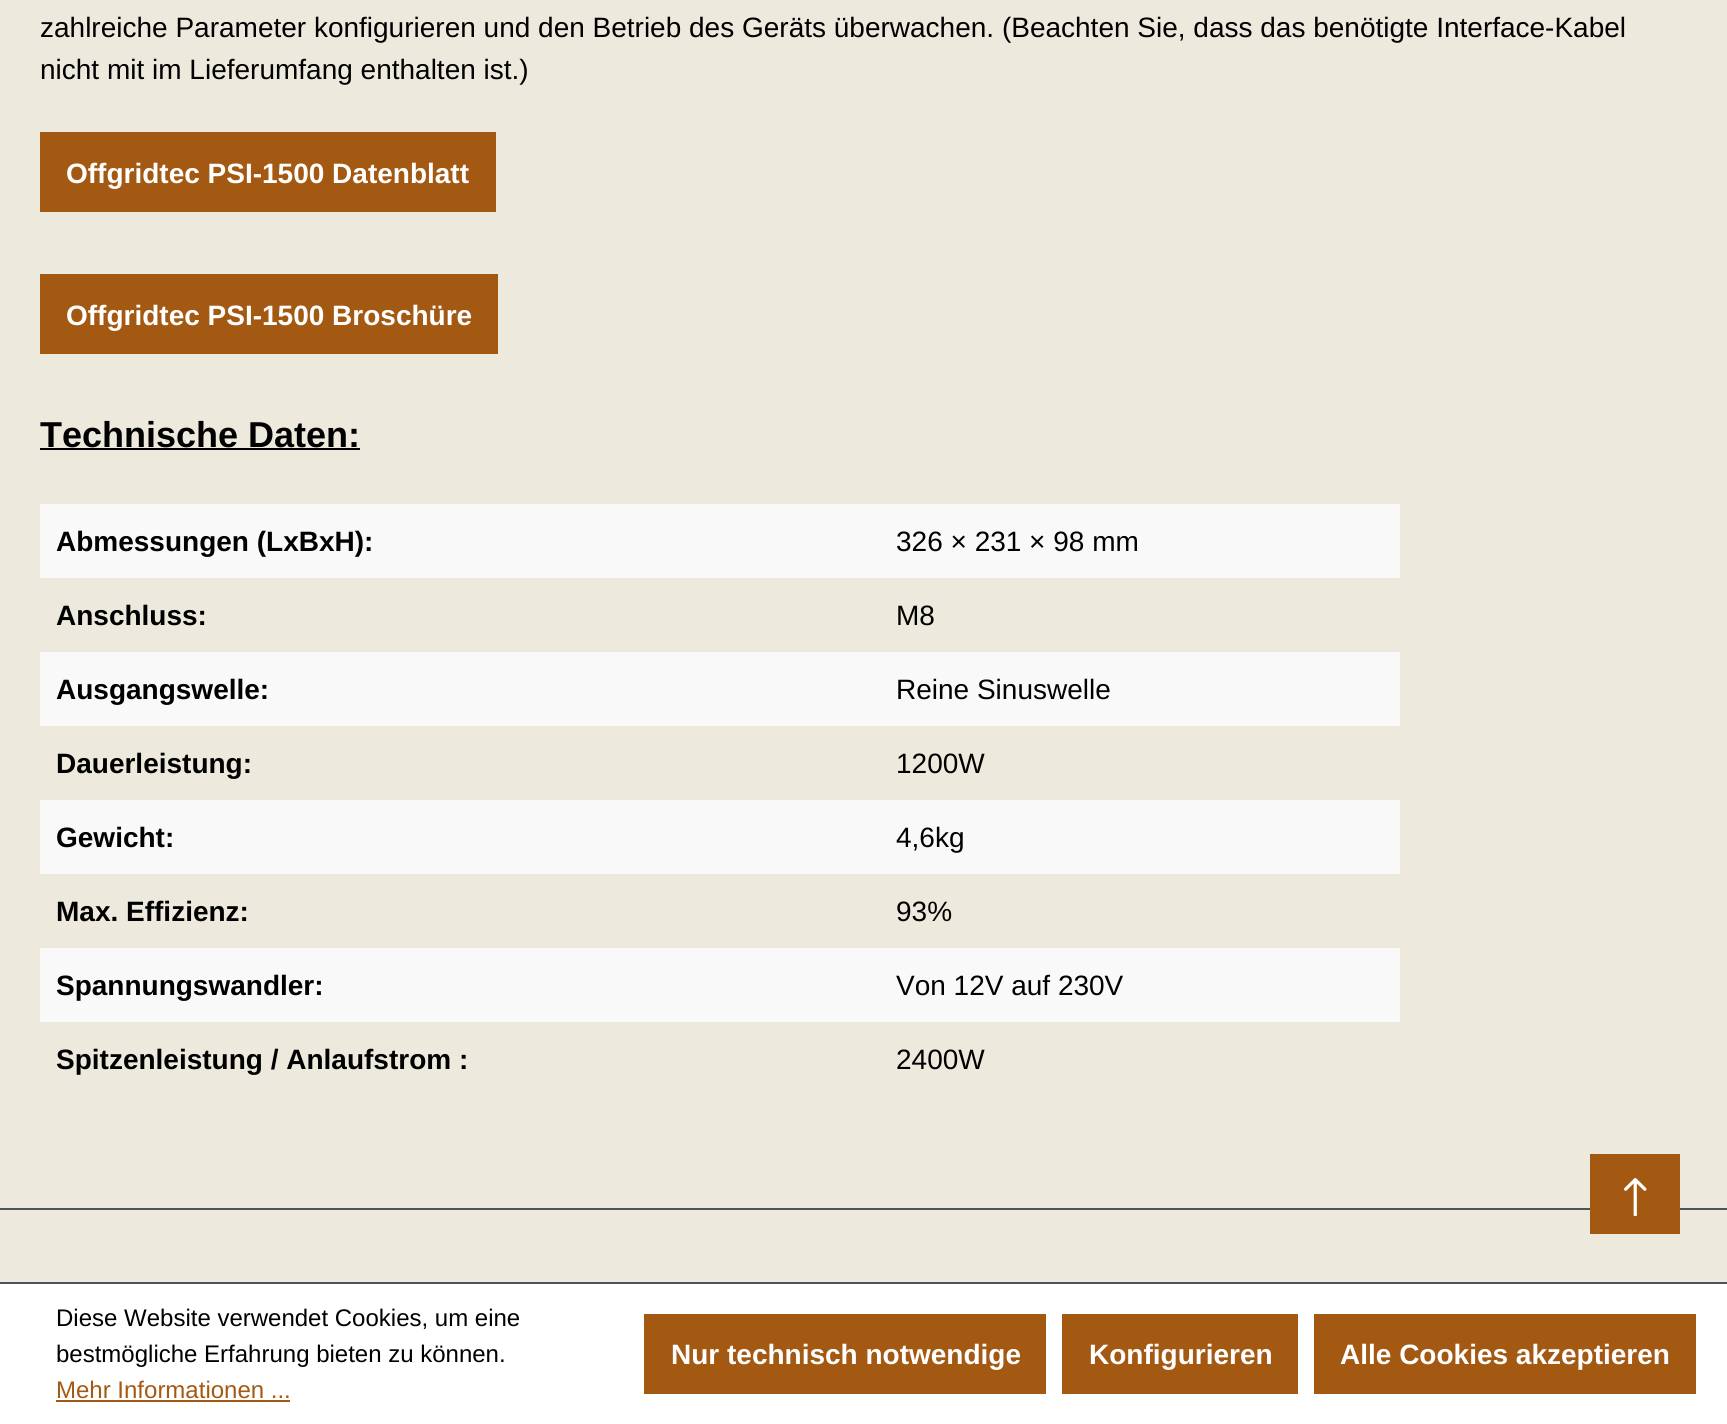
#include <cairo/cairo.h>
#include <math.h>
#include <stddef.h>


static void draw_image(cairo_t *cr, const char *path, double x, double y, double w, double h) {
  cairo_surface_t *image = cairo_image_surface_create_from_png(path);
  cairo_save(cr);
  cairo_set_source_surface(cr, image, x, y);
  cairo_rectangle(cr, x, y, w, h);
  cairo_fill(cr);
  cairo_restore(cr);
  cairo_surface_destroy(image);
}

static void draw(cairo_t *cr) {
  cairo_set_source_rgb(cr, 237 / 255.0, 233 / 255.0, 221 / 255.0);
  cairo_paint(cr);
  cairo_set_source_rgb(cr, 164 / 255.0, 89 / 255.0, 19 / 255.0);
  cairo_rectangle(cr, 40, 132, 456, 80);
  cairo_fill(cr);
  cairo_rectangle(cr, 40, 274, 458, 80);
  cairo_fill(cr);
  cairo_set_source_rgb(cr, 0, 0, 0);
  cairo_rectangle(cr, 40, 448, 320, 2);
  cairo_fill(cr);
  cairo_set_source_rgb(cr, 249 / 255.0, 249 / 255.0, 249 / 255.0);
  cairo_rectangle(cr, 40, 504, 1360, 74);
  cairo_fill(cr);
  cairo_rectangle(cr, 40, 652, 1360, 74);
  cairo_fill(cr);
  cairo_rectangle(cr, 40, 800, 1360, 74);
  cairo_fill(cr);
  cairo_rectangle(cr, 40, 948, 1360, 74);
  cairo_fill(cr);
  cairo_set_source_rgb(cr, 74 / 255.0, 84 / 255.0, 91 / 255.0);
  cairo_rectangle(cr, 0, 1208, 1727, 2);
  cairo_fill(cr);
  cairo_set_source_rgb(cr, 164 / 255.0, 89 / 255.0, 19 / 255.0);
  cairo_rectangle(cr, 1590, 1154, 90, 80);
  cairo_fill(cr);
  draw_image(cr, "images/1.png", 1624, 1178, 23, 38);
  cairo_set_source_rgb(cr, 1, 1, 1);
  cairo_rectangle(cr, 0, 1284, 1727, 140);
  cairo_fill(cr);
  cairo_set_source_rgb(cr, 74 / 255.0, 84 / 255.0, 91 / 255.0);
  cairo_rectangle(cr, 0, 1282, 1727, 2);
  cairo_fill(cr);
  cairo_set_source_rgb(cr, 164 / 255.0, 89 / 255.0, 19 / 255.0);
  cairo_rectangle(cr, 56, 1400, 234, 2);
  cairo_fill(cr);
  cairo_rectangle(cr, 644, 1314, 402, 80);
  cairo_fill(cr);
  cairo_rectangle(cr, 1062, 1314, 236, 80);
  cairo_fill(cr);
  cairo_rectangle(cr, 1314, 1314, 382, 80);
  cairo_fill(cr);
  cairo_select_font_face(cr, "Liberation Sans", CAIRO_FONT_SLANT_NORMAL, CAIRO_FONT_WEIGHT_NORMAL);
  cairo_set_font_size(cr, 28);
  cairo_set_source_rgb(cr, 0, 0, 0);
  cairo_move_to(cr, 40, 37);
  cairo_show_text(cr, "zahlreiche Parameter konfigurieren und den Betrieb des Geräts überwachen. (Beachten Sie, dass das benötigte Interface-Kabel");
  cairo_move_to(cr, 40, 79);
  cairo_show_text(cr, "nicht mit im Lieferumfang enthalten ist.)");
  cairo_select_font_face(cr, "Liberation Sans", CAIRO_FONT_SLANT_NORMAL, CAIRO_FONT_WEIGHT_BOLD);
  cairo_set_source_rgb(cr, 1, 1, 1);
  cairo_move_to(cr, 66, 183);
  cairo_show_text(cr, "Offgridtec PSI-1500 Datenblatt");
  cairo_move_to(cr, 66, 325);
  cairo_show_text(cr, "Offgridtec PSI-1500 Broschüre");
  cairo_set_font_size(cr, 36);
  cairo_set_source_rgb(cr, 0, 0, 0);
  cairo_move_to(cr, 40, 447);
  cairo_show_text(cr, "Technische Daten:");
  cairo_set_font_size(cr, 28);
  cairo_move_to(cr, 56, 551);
  cairo_show_text(cr, "Abmessungen (LxBxH):");
  cairo_select_font_face(cr, "Liberation Sans", CAIRO_FONT_SLANT_NORMAL, CAIRO_FONT_WEIGHT_NORMAL);
  cairo_move_to(cr, 896, 551);
  cairo_show_text(cr, "326 × 231 × 98 mm");
  cairo_select_font_face(cr, "Liberation Sans", CAIRO_FONT_SLANT_NORMAL, CAIRO_FONT_WEIGHT_BOLD);
  cairo_move_to(cr, 56, 625);
  cairo_show_text(cr, "Anschluss:");
  cairo_select_font_face(cr, "Liberation Sans", CAIRO_FONT_SLANT_NORMAL, CAIRO_FONT_WEIGHT_NORMAL);
  cairo_move_to(cr, 896, 625);
  cairo_show_text(cr, "M8");
  cairo_select_font_face(cr, "Liberation Sans", CAIRO_FONT_SLANT_NORMAL, CAIRO_FONT_WEIGHT_BOLD);
  cairo_move_to(cr, 56, 699);
  cairo_show_text(cr, "Ausgangswelle:");
  cairo_select_font_face(cr, "Liberation Sans", CAIRO_FONT_SLANT_NORMAL, CAIRO_FONT_WEIGHT_NORMAL);
  cairo_move_to(cr, 896, 699);
  cairo_show_text(cr, "Reine Sinuswelle");
  cairo_select_font_face(cr, "Liberation Sans", CAIRO_FONT_SLANT_NORMAL, CAIRO_FONT_WEIGHT_BOLD);
  cairo_move_to(cr, 56, 773);
  cairo_show_text(cr, "Dauerleistung:");
  cairo_select_font_face(cr, "Liberation Sans", CAIRO_FONT_SLANT_NORMAL, CAIRO_FONT_WEIGHT_NORMAL);
  cairo_move_to(cr, 896, 773);
  cairo_show_text(cr, "1200W");
  cairo_select_font_face(cr, "Liberation Sans", CAIRO_FONT_SLANT_NORMAL, CAIRO_FONT_WEIGHT_BOLD);
  cairo_move_to(cr, 56, 847);
  cairo_show_text(cr, "Gewicht:");
  cairo_select_font_face(cr, "Liberation Sans", CAIRO_FONT_SLANT_NORMAL, CAIRO_FONT_WEIGHT_NORMAL);
  cairo_move_to(cr, 896, 847);
  cairo_show_text(cr, "4,6kg");
  cairo_select_font_face(cr, "Liberation Sans", CAIRO_FONT_SLANT_NORMAL, CAIRO_FONT_WEIGHT_BOLD);
  cairo_move_to(cr, 56, 921);
  cairo_show_text(cr, "Max. Effizienz:");
  cairo_select_font_face(cr, "Liberation Sans", CAIRO_FONT_SLANT_NORMAL, CAIRO_FONT_WEIGHT_NORMAL);
  cairo_move_to(cr, 896, 921);
  cairo_show_text(cr, "93%");
  cairo_select_font_face(cr, "Liberation Sans", CAIRO_FONT_SLANT_NORMAL, CAIRO_FONT_WEIGHT_BOLD);
  cairo_move_to(cr, 56, 995);
  cairo_show_text(cr, "Spannungswandler:");
  cairo_select_font_face(cr, "Liberation Sans", CAIRO_FONT_SLANT_NORMAL, CAIRO_FONT_WEIGHT_NORMAL);
  cairo_move_to(cr, 896, 995);
  cairo_show_text(cr, "Von 12V auf 230V");
  cairo_select_font_face(cr, "Liberation Sans", CAIRO_FONT_SLANT_NORMAL, CAIRO_FONT_WEIGHT_BOLD);
  cairo_move_to(cr, 56, 1069);
  cairo_show_text(cr, "Spitzenleistung / Anlaufstrom :");
  cairo_select_font_face(cr, "Liberation Sans", CAIRO_FONT_SLANT_NORMAL, CAIRO_FONT_WEIGHT_NORMAL);
  cairo_move_to(cr, 896, 1069);
  cairo_show_text(cr, "2400W");
  cairo_set_font_size(cr, 24);
  cairo_move_to(cr, 56, 1326);
  cairo_show_text(cr, "Diese Website verwendet Cookies, um eine");
  cairo_move_to(cr, 56, 1362);
  cairo_show_text(cr, "bestmögliche Erfahrung bieten zu können.");
  cairo_set_source_rgb(cr, 164 / 255.0, 89 / 255.0, 19 / 255.0);
  cairo_move_to(cr, 56, 1398);
  cairo_show_text(cr, "Mehr Informationen ...");
  cairo_select_font_face(cr, "Liberation Sans", CAIRO_FONT_SLANT_NORMAL, CAIRO_FONT_WEIGHT_BOLD);
  cairo_set_font_size(cr, 28);
  cairo_set_source_rgb(cr, 1, 1, 1);
  cairo_move_to(cr, 671, 1364);
  cairo_show_text(cr, "Nur technisch notwendige");
  cairo_move_to(cr, 1089, 1364);
  cairo_show_text(cr, "Konfigurieren");
  cairo_move_to(cr, 1340, 1364);
  cairo_show_text(cr, "Alle Cookies akzeptieren");
}

int main(void) {
  cairo_surface_t *surface = cairo_image_surface_create(CAIRO_FORMAT_RGB24, 1727, 1424);
  cairo_t *cr = cairo_create(surface);
  cairo_font_options_t *options = cairo_font_options_create();
  cairo_font_options_set_hint_metrics(options, CAIRO_HINT_METRICS_OFF);
  cairo_font_options_set_hint_style(options, CAIRO_HINT_STYLE_NONE);
  cairo_set_font_options(cr, options);
  cairo_set_miter_limit(cr, 4);
  draw(cr);
  cairo_surface_write_to_png(surface, "out.png");
  cairo_font_options_destroy(options);
  cairo_destroy(cr);
  cairo_surface_destroy(surface);
  return 0;
}
